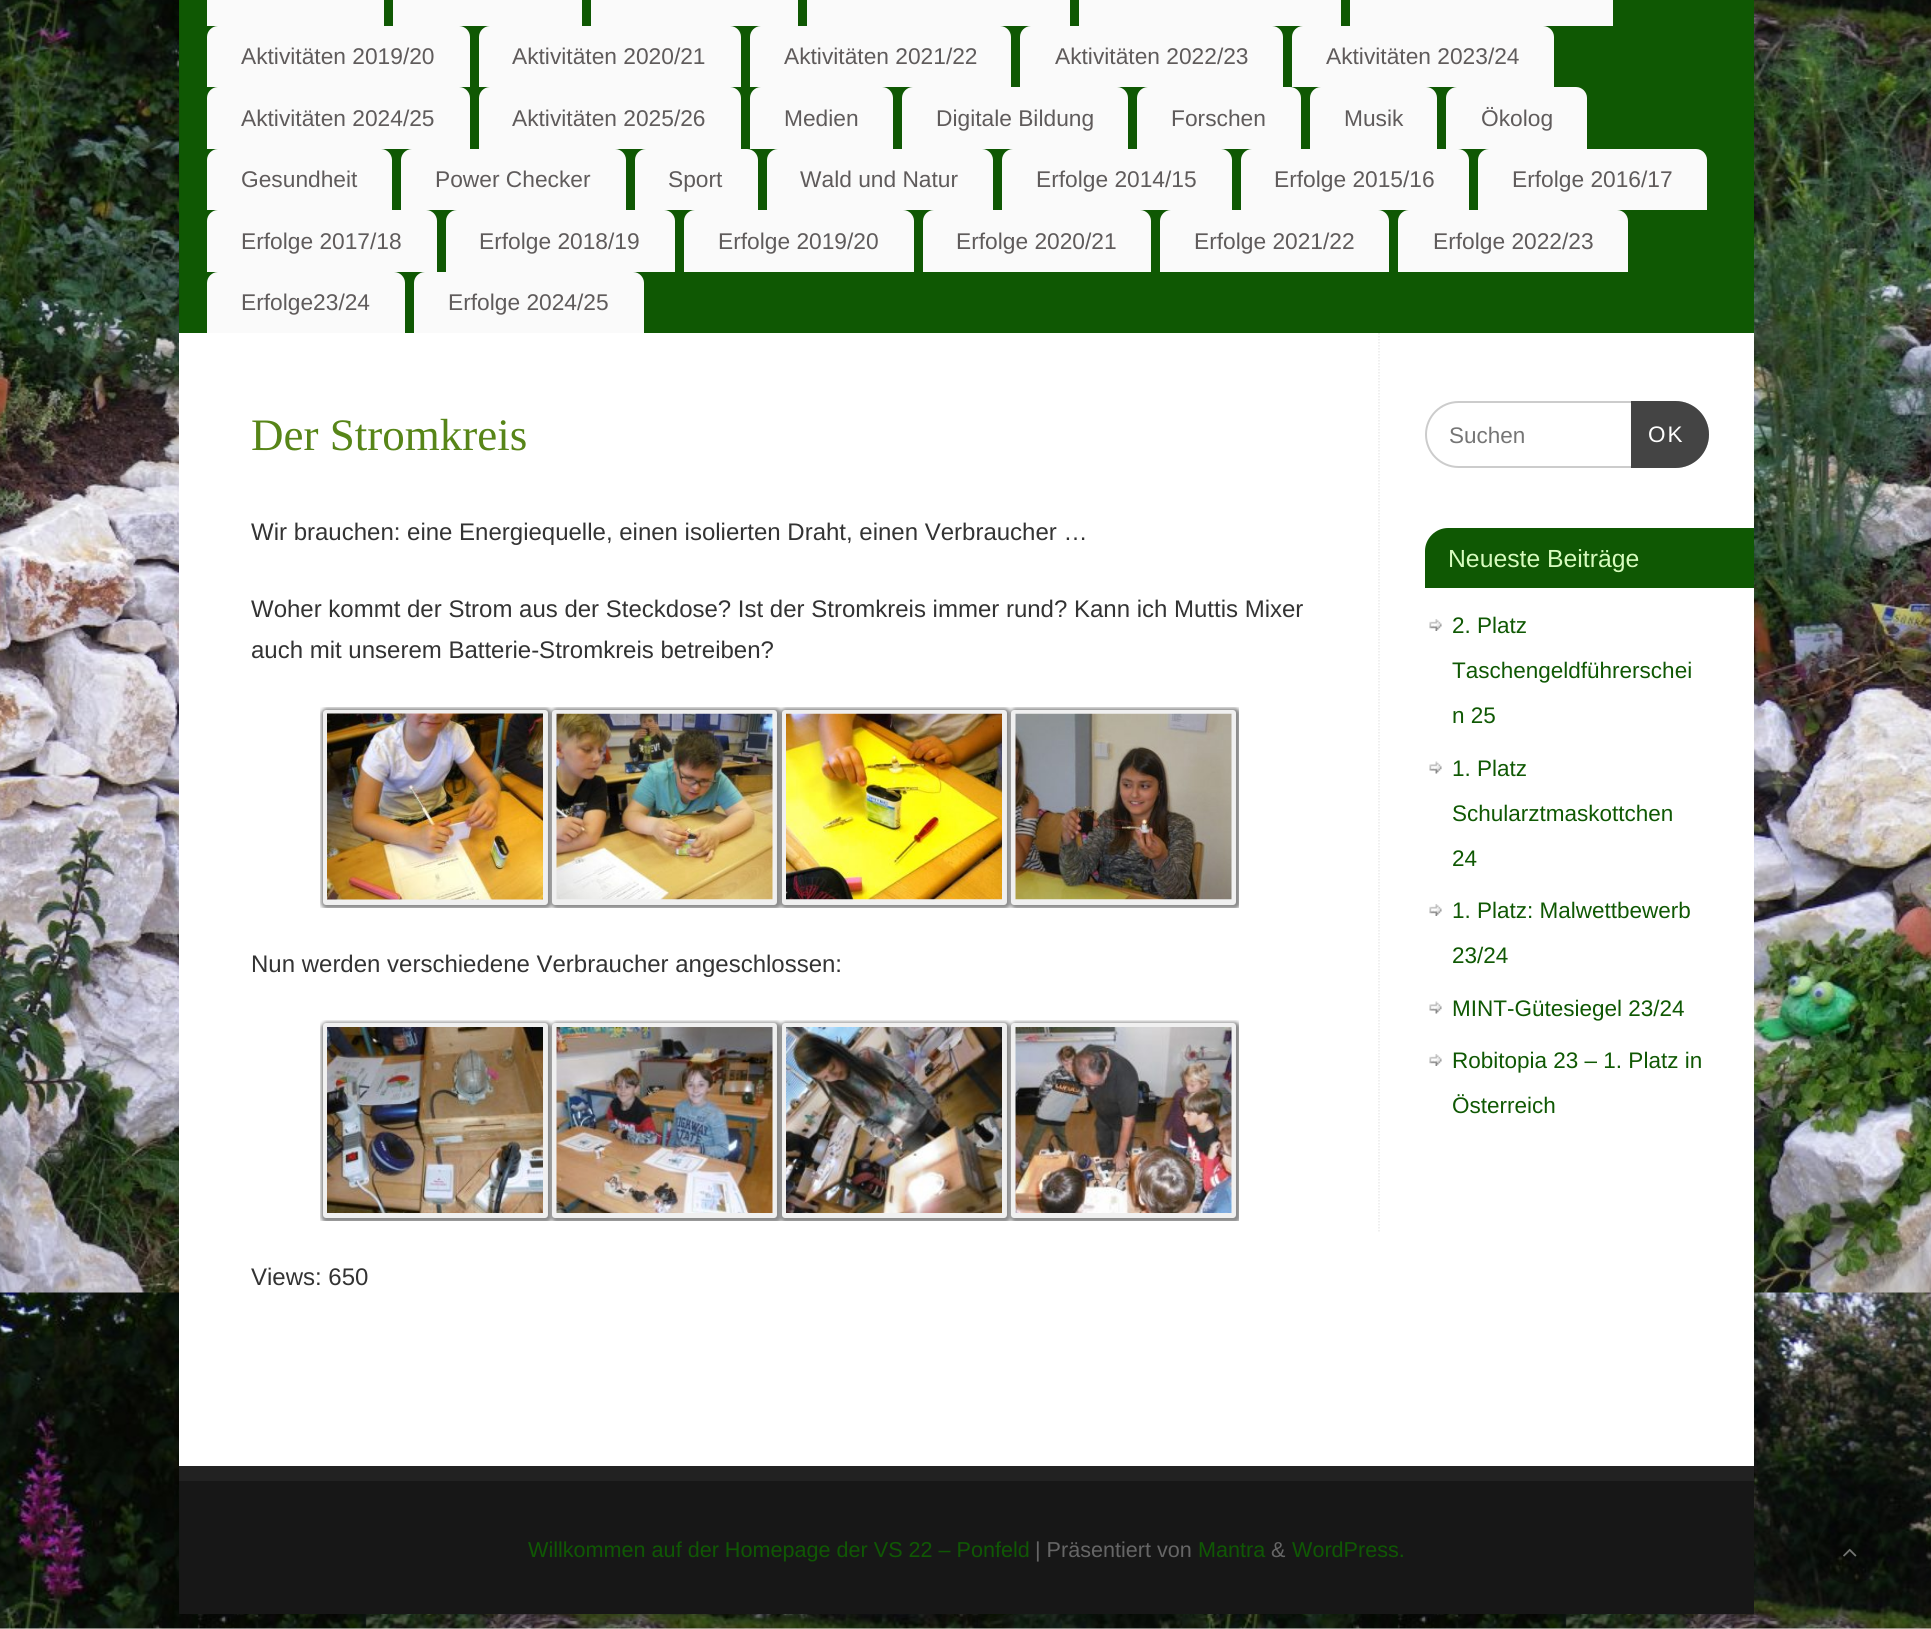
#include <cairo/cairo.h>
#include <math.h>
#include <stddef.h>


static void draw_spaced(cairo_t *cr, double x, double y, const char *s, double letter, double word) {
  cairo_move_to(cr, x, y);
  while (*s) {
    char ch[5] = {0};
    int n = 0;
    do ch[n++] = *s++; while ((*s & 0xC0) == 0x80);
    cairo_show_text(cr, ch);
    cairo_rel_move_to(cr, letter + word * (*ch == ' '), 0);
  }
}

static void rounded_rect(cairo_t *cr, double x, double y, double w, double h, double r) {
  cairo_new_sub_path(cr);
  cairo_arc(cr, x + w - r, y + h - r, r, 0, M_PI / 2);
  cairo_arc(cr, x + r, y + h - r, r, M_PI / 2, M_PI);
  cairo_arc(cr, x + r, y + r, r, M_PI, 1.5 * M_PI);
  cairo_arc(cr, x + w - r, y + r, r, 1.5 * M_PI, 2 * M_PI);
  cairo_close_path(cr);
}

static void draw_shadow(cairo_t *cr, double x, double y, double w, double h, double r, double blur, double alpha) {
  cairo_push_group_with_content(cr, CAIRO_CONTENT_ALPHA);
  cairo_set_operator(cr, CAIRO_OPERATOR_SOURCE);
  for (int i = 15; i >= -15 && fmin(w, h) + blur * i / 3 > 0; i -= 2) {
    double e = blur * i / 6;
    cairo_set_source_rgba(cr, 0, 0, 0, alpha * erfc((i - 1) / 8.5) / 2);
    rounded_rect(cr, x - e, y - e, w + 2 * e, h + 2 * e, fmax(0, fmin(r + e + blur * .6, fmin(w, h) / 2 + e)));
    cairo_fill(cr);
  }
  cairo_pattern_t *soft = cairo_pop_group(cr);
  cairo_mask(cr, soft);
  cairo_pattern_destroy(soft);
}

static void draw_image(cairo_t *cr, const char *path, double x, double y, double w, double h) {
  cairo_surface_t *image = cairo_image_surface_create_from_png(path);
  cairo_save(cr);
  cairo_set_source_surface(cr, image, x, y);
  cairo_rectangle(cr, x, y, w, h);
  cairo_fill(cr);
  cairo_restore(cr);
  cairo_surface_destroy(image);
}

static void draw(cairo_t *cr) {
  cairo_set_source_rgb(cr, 1, 1, 1);
  cairo_paint(cr);
  draw_image(cr, "images/1.png", 0, 0, 1931, 1629);
  cairo_set_source_rgb(cr, 15 / 255.0, 88 / 255.0, 3 / 255.0);
  cairo_rectangle(cr, 179, 0, 1575, 333);
  cairo_fill(cr);
  cairo_set_source_rgb(cr, 250 / 255.0, 250 / 255.0, 250 / 255.0);
  cairo_rectangle(cr, 207, 0, 177, 26);
  cairo_fill(cr);
  cairo_rectangle(cr, 393, 0, 189, 26);
  cairo_fill(cr);
  cairo_rectangle(cr, 591, 0, 207, 26);
  cairo_fill(cr);
  cairo_rectangle(cr, 807, 0, 263, 26);
  cairo_fill(cr);
  cairo_rectangle(cr, 1079, 0, 262, 26);
  cairo_fill(cr);
  cairo_rectangle(cr, 1350, 0, 263, 26);
  cairo_fill(cr);
  cairo_new_path(cr);
  cairo_move_to(cr, 218, 26);
  cairo_line_to(cr, 459, 26);
  cairo_curve_to(cr, 465, 26, 470, 31, 470, 37);
  cairo_line_to(cr, 470, 87);
  cairo_line_to(cr, 207, 87);
  cairo_line_to(cr, 207, 37);
  cairo_curve_to(cr, 207, 31, 212, 26, 218, 26);
  cairo_close_path(cr);
  cairo_fill(cr);
  cairo_new_path(cr);
  cairo_move_to(cr, 490, 26);
  cairo_line_to(cr, 730, 26);
  cairo_curve_to(cr, 736, 26, 741, 31, 741, 37);
  cairo_line_to(cr, 741, 87);
  cairo_line_to(cr, 479, 87);
  cairo_line_to(cr, 479, 37);
  cairo_curve_to(cr, 479, 31, 484, 26, 490, 26);
  cairo_close_path(cr);
  cairo_fill(cr);
  cairo_new_path(cr);
  cairo_move_to(cr, 761, 26);
  cairo_line_to(cr, 1000, 26);
  cairo_curve_to(cr, 1006, 26, 1011, 31, 1011, 37);
  cairo_line_to(cr, 1011, 87);
  cairo_line_to(cr, 750, 87);
  cairo_line_to(cr, 750, 37);
  cairo_curve_to(cr, 750, 31, 755, 26, 761, 26);
  cairo_close_path(cr);
  cairo_fill(cr);
  cairo_new_path(cr);
  cairo_move_to(cr, 1031, 26);
  cairo_line_to(cr, 1272, 26);
  cairo_curve_to(cr, 1278, 26, 1283, 31, 1283, 37);
  cairo_line_to(cr, 1283, 87);
  cairo_line_to(cr, 1020, 87);
  cairo_line_to(cr, 1020, 37);
  cairo_curve_to(cr, 1020, 31, 1025, 26, 1031, 26);
  cairo_close_path(cr);
  cairo_fill(cr);
  cairo_new_path(cr);
  cairo_move_to(cr, 1303, 26);
  cairo_line_to(cr, 1543, 26);
  cairo_curve_to(cr, 1549, 26, 1554, 31, 1554, 37);
  cairo_line_to(cr, 1554, 87);
  cairo_line_to(cr, 1292, 87);
  cairo_line_to(cr, 1292, 37);
  cairo_curve_to(cr, 1292, 31, 1297, 26, 1303, 26);
  cairo_close_path(cr);
  cairo_fill(cr);
  cairo_new_path(cr);
  cairo_move_to(cr, 218, 87);
  cairo_line_to(cr, 459, 87);
  cairo_curve_to(cr, 465, 87, 470, 92, 470, 98);
  cairo_line_to(cr, 470, 149);
  cairo_line_to(cr, 207, 149);
  cairo_line_to(cr, 207, 98);
  cairo_curve_to(cr, 207, 92, 212, 87, 218, 87);
  cairo_close_path(cr);
  cairo_fill(cr);
  cairo_new_path(cr);
  cairo_move_to(cr, 490, 87);
  cairo_line_to(cr, 730, 87);
  cairo_curve_to(cr, 736, 87, 741, 92, 741, 98);
  cairo_line_to(cr, 741, 149);
  cairo_line_to(cr, 479, 149);
  cairo_line_to(cr, 479, 98);
  cairo_curve_to(cr, 479, 92, 484, 87, 490, 87);
  cairo_close_path(cr);
  cairo_fill(cr);
  cairo_new_path(cr);
  cairo_move_to(cr, 761, 87);
  cairo_line_to(cr, 882, 87);
  cairo_curve_to(cr, 888, 87, 893, 92, 893, 98);
  cairo_line_to(cr, 893, 149);
  cairo_line_to(cr, 750, 149);
  cairo_line_to(cr, 750, 98);
  cairo_curve_to(cr, 750, 92, 755, 87, 761, 87);
  cairo_close_path(cr);
  cairo_fill(cr);
  cairo_new_path(cr);
  cairo_move_to(cr, 913, 87);
  cairo_line_to(cr, 1117, 87);
  cairo_curve_to(cr, 1123, 87, 1128, 92, 1128, 98);
  cairo_line_to(cr, 1128, 149);
  cairo_line_to(cr, 902, 149);
  cairo_line_to(cr, 902, 98);
  cairo_curve_to(cr, 902, 92, 907, 87, 913, 87);
  cairo_close_path(cr);
  cairo_fill(cr);
  cairo_new_path(cr);
  cairo_move_to(cr, 1148, 87);
  cairo_line_to(cr, 1290, 87);
  cairo_curve_to(cr, 1296, 87, 1301, 92, 1301, 98);
  cairo_line_to(cr, 1301, 149);
  cairo_line_to(cr, 1137, 149);
  cairo_line_to(cr, 1137, 98);
  cairo_curve_to(cr, 1137, 92, 1142, 87, 1148, 87);
  cairo_close_path(cr);
  cairo_fill(cr);
  cairo_new_path(cr);
  cairo_move_to(cr, 1321, 87);
  cairo_line_to(cr, 1426, 87);
  cairo_curve_to(cr, 1432, 87, 1437, 92, 1437, 98);
  cairo_line_to(cr, 1437, 149);
  cairo_line_to(cr, 1310, 149);
  cairo_line_to(cr, 1310, 98);
  cairo_curve_to(cr, 1310, 92, 1315, 87, 1321, 87);
  cairo_close_path(cr);
  cairo_fill(cr);
  cairo_new_path(cr);
  cairo_move_to(cr, 1457, 87);
  cairo_line_to(cr, 1576, 87);
  cairo_curve_to(cr, 1582, 87, 1587, 92, 1587, 98);
  cairo_line_to(cr, 1587, 149);
  cairo_line_to(cr, 1446, 149);
  cairo_line_to(cr, 1446, 98);
  cairo_curve_to(cr, 1446, 92, 1451, 87, 1457, 87);
  cairo_close_path(cr);
  cairo_fill(cr);
  cairo_new_path(cr);
  cairo_move_to(cr, 218, 149);
  cairo_line_to(cr, 381, 149);
  cairo_curve_to(cr, 387, 149, 392, 154, 392, 160);
  cairo_line_to(cr, 392, 210);
  cairo_line_to(cr, 207, 210);
  cairo_line_to(cr, 207, 160);
  cairo_curve_to(cr, 207, 154, 212, 149, 218, 149);
  cairo_close_path(cr);
  cairo_fill(cr);
  cairo_new_path(cr);
  cairo_move_to(cr, 412, 149);
  cairo_line_to(cr, 615, 149);
  cairo_curve_to(cr, 621, 149, 626, 154, 626, 160);
  cairo_line_to(cr, 626, 210);
  cairo_line_to(cr, 401, 210);
  cairo_line_to(cr, 401, 160);
  cairo_curve_to(cr, 401, 154, 406, 149, 412, 149);
  cairo_close_path(cr);
  cairo_fill(cr);
  cairo_new_path(cr);
  cairo_move_to(cr, 646, 149);
  cairo_line_to(cr, 747, 149);
  cairo_curve_to(cr, 753, 149, 758, 154, 758, 160);
  cairo_line_to(cr, 758, 210);
  cairo_line_to(cr, 635, 210);
  cairo_line_to(cr, 635, 160);
  cairo_curve_to(cr, 635, 154, 640, 149, 646, 149);
  cairo_close_path(cr);
  cairo_fill(cr);
  cairo_new_path(cr);
  cairo_move_to(cr, 778, 149);
  cairo_line_to(cr, 982, 149);
  cairo_curve_to(cr, 988, 149, 993, 154, 993, 160);
  cairo_line_to(cr, 993, 210);
  cairo_line_to(cr, 767, 210);
  cairo_line_to(cr, 767, 160);
  cairo_curve_to(cr, 767, 154, 772, 149, 778, 149);
  cairo_close_path(cr);
  cairo_fill(cr);
  cairo_new_path(cr);
  cairo_move_to(cr, 1013, 149);
  cairo_line_to(cr, 1221, 149);
  cairo_curve_to(cr, 1227, 149, 1232, 154, 1232, 160);
  cairo_line_to(cr, 1232, 210);
  cairo_line_to(cr, 1002, 210);
  cairo_line_to(cr, 1002, 160);
  cairo_curve_to(cr, 1002, 154, 1007, 149, 1013, 149);
  cairo_close_path(cr);
  cairo_fill(cr);
  cairo_new_path(cr);
  cairo_move_to(cr, 1252, 149);
  cairo_line_to(cr, 1458, 149);
  cairo_curve_to(cr, 1464, 149, 1469, 154, 1469, 160);
  cairo_line_to(cr, 1469, 210);
  cairo_line_to(cr, 1241, 210);
  cairo_line_to(cr, 1241, 160);
  cairo_curve_to(cr, 1241, 154, 1246, 149, 1252, 149);
  cairo_close_path(cr);
  cairo_fill(cr);
  cairo_new_path(cr);
  cairo_move_to(cr, 1489, 149);
  cairo_line_to(cr, 1696, 149);
  cairo_curve_to(cr, 1702, 149, 1707, 154, 1707, 160);
  cairo_line_to(cr, 1707, 210);
  cairo_line_to(cr, 1478, 210);
  cairo_line_to(cr, 1478, 160);
  cairo_curve_to(cr, 1478, 154, 1483, 149, 1489, 149);
  cairo_close_path(cr);
  cairo_fill(cr);
  cairo_new_path(cr);
  cairo_move_to(cr, 218, 210);
  cairo_line_to(cr, 426, 210);
  cairo_curve_to(cr, 432, 210, 437, 215, 437, 221);
  cairo_line_to(cr, 437, 272);
  cairo_line_to(cr, 207, 272);
  cairo_line_to(cr, 207, 221);
  cairo_curve_to(cr, 207, 215, 212, 210, 218, 210);
  cairo_close_path(cr);
  cairo_fill(cr);
  cairo_new_path(cr);
  cairo_move_to(cr, 457, 210);
  cairo_line_to(cr, 664, 210);
  cairo_curve_to(cr, 670, 210, 675, 215, 675, 221);
  cairo_line_to(cr, 675, 272);
  cairo_line_to(cr, 446, 272);
  cairo_line_to(cr, 446, 221);
  cairo_curve_to(cr, 446, 215, 451, 210, 457, 210);
  cairo_close_path(cr);
  cairo_fill(cr);
  cairo_new_path(cr);
  cairo_move_to(cr, 695, 210);
  cairo_line_to(cr, 903, 210);
  cairo_curve_to(cr, 909, 210, 914, 215, 914, 221);
  cairo_line_to(cr, 914, 272);
  cairo_line_to(cr, 684, 272);
  cairo_line_to(cr, 684, 221);
  cairo_curve_to(cr, 684, 215, 689, 210, 695, 210);
  cairo_close_path(cr);
  cairo_fill(cr);
  cairo_new_path(cr);
  cairo_move_to(cr, 934, 210);
  cairo_line_to(cr, 1140, 210);
  cairo_curve_to(cr, 1146, 210, 1151, 215, 1151, 221);
  cairo_line_to(cr, 1151, 272);
  cairo_line_to(cr, 923, 272);
  cairo_line_to(cr, 923, 221);
  cairo_curve_to(cr, 923, 215, 928, 210, 934, 210);
  cairo_close_path(cr);
  cairo_fill(cr);
  cairo_new_path(cr);
  cairo_move_to(cr, 1171, 210);
  cairo_line_to(cr, 1378, 210);
  cairo_curve_to(cr, 1384, 210, 1389, 215, 1389, 221);
  cairo_line_to(cr, 1389, 272);
  cairo_line_to(cr, 1160, 272);
  cairo_line_to(cr, 1160, 221);
  cairo_curve_to(cr, 1160, 215, 1165, 210, 1171, 210);
  cairo_close_path(cr);
  cairo_fill(cr);
  cairo_new_path(cr);
  cairo_move_to(cr, 1409, 210);
  cairo_line_to(cr, 1617, 210);
  cairo_curve_to(cr, 1623, 210, 1628, 215, 1628, 221);
  cairo_line_to(cr, 1628, 272);
  cairo_line_to(cr, 1398, 272);
  cairo_line_to(cr, 1398, 221);
  cairo_curve_to(cr, 1398, 215, 1403, 210, 1409, 210);
  cairo_close_path(cr);
  cairo_fill(cr);
  cairo_new_path(cr);
  cairo_move_to(cr, 218, 272);
  cairo_line_to(cr, 394, 272);
  cairo_curve_to(cr, 400, 272, 405, 277, 405, 283);
  cairo_line_to(cr, 405, 333);
  cairo_line_to(cr, 207, 333);
  cairo_line_to(cr, 207, 283);
  cairo_curve_to(cr, 207, 277, 212, 272, 218, 272);
  cairo_close_path(cr);
  cairo_fill(cr);
  cairo_new_path(cr);
  cairo_move_to(cr, 425, 272);
  cairo_line_to(cr, 633, 272);
  cairo_curve_to(cr, 639, 272, 644, 277, 644, 283);
  cairo_line_to(cr, 644, 333);
  cairo_line_to(cr, 414, 333);
  cairo_line_to(cr, 414, 283);
  cairo_curve_to(cr, 414, 277, 419, 272, 425, 272);
  cairo_close_path(cr);
  cairo_fill(cr);
  cairo_set_source_rgb(cr, 1, 1, 1);
  cairo_rectangle(cr, 179, 333, 1575, 1133);
  cairo_fill(cr);
  cairo_save(cr);
  cairo_rectangle(cr, 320, 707, 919, 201);
  cairo_clip(cr);
  cairo_set_source_rgb(cr, 139 / 255.0, 139 / 255.0, 139 / 255.0);
  draw_shadow(cr, 321, 708, 231, 201, 6, 2, 1);
  cairo_restore(cr);
  cairo_set_source_rgb(cr, 240 / 255.0, 240 / 255.0, 240 / 255.0);
  rounded_rect(cr, 325.5, 712.5, 220, 190, 0.5);
  cairo_fill_preserve(cr);
  cairo_set_line_width(cr, 5);
  cairo_stroke(cr);
  draw_image(cr, "images/2.png", 327, 713, 216, 187);
  cairo_save(cr);
  cairo_rectangle(cr, 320, 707, 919, 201);
  cairo_clip(cr);
  cairo_set_source_rgb(cr, 139 / 255.0, 139 / 255.0, 139 / 255.0);
  draw_shadow(cr, 551, 708, 231, 201, 6, 2, 1);
  cairo_restore(cr);
  rounded_rect(cr, 554.5, 712.5, 220, 190, 0.5);
  cairo_fill_preserve(cr);
  cairo_stroke(cr);
  draw_image(cr, "images/3.png", 556, 713, 217, 187);
  cairo_save(cr);
  cairo_rectangle(cr, 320, 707, 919, 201);
  cairo_clip(cr);
  cairo_set_source_rgb(cr, 139 / 255.0, 139 / 255.0, 139 / 255.0);
  draw_shadow(cr, 780, 708, 231, 201, 6, 2, 1);
  cairo_restore(cr);
  rounded_rect(cr, 784.5, 712.5, 220, 190, 0.5);
  cairo_fill_preserve(cr);
  cairo_stroke(cr);
  draw_image(cr, "images/4.png", 786, 713, 216, 187);
  cairo_save(cr);
  cairo_rectangle(cr, 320, 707, 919, 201);
  cairo_clip(cr);
  cairo_set_source_rgb(cr, 139 / 255.0, 139 / 255.0, 139 / 255.0);
  draw_shadow(cr, 1010, 708, 231, 201, 6, 2, 1);
  cairo_restore(cr);
  rounded_rect(cr, 1013.5, 712.5, 220, 190, 0.5);
  cairo_fill_preserve(cr);
  cairo_stroke(cr);
  draw_image(cr, "images/5.png", 1015, 713, 217, 187);
  cairo_save(cr);
  cairo_rectangle(cr, 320, 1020, 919, 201);
  cairo_clip(cr);
  cairo_set_source_rgb(cr, 139 / 255.0, 139 / 255.0, 139 / 255.0);
  draw_shadow(cr, 321, 1022, 231, 201, 6, 2, 1);
  cairo_restore(cr);
  rounded_rect(cr, 325.5, 1025.5, 220, 190, 0.5);
  cairo_stroke(cr);
  draw_image(cr, "images/6.png", 327, 1027, 216, 186);
  cairo_save(cr);
  cairo_rectangle(cr, 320, 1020, 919, 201);
  cairo_clip(cr);
  cairo_set_source_rgb(cr, 139 / 255.0, 139 / 255.0, 139 / 255.0);
  draw_shadow(cr, 551, 1022, 231, 201, 6, 2, 1);
  cairo_restore(cr);
  rounded_rect(cr, 554.5, 1025.5, 220, 190, 0.5);
  cairo_stroke(cr);
  draw_image(cr, "images/7.png", 556, 1027, 217, 186);
  cairo_save(cr);
  cairo_rectangle(cr, 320, 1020, 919, 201);
  cairo_clip(cr);
  cairo_set_source_rgb(cr, 139 / 255.0, 139 / 255.0, 139 / 255.0);
  draw_shadow(cr, 780, 1022, 231, 201, 6, 2, 1);
  cairo_restore(cr);
  rounded_rect(cr, 784.5, 1025.5, 220, 190, 0.5);
  cairo_stroke(cr);
  draw_image(cr, "images/8.png", 786, 1027, 216, 186);
  cairo_save(cr);
  cairo_rectangle(cr, 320, 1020, 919, 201);
  cairo_clip(cr);
  cairo_set_source_rgb(cr, 139 / 255.0, 139 / 255.0, 139 / 255.0);
  draw_shadow(cr, 1010, 1022, 231, 201, 6, 2, 1);
  cairo_restore(cr);
  rounded_rect(cr, 1013.5, 1025.5, 220, 190, 0.5);
  cairo_stroke(cr);
  draw_image(cr, "images/9.png", 1015, 1027, 217, 186);
  cairo_new_path(cr);
  cairo_move_to(cr, 1379, 333);
  cairo_line_to(cr, 1379, 1233);
  cairo_set_source_rgb(cr, 234 / 255.0, 234 / 255.0, 234 / 255.0);
  cairo_set_line_width(cr, 1.5);
  cairo_set_dash(cr, (double[]){1.5, 1.5}, 2, 0);
  cairo_stroke(cr);
  rounded_rect(cr, 1426, 402, 282, 65, 32.5);
  cairo_set_source_rgb(cr, 204 / 255.0, 204 / 255.0, 204 / 255.0);
  cairo_set_line_width(cr, 2);
  cairo_set_dash(cr, NULL, 0, 0);
  cairo_stroke(cr);
  cairo_set_source_rgb(cr, 68 / 255.0, 68 / 255.0, 68 / 255.0);
  cairo_new_path(cr);
  cairo_move_to(cr, 1631, 401);
  cairo_line_to(cr, 1675.5, 401);
  cairo_curve_to(cr, 1694, 401, 1709, 416, 1709, 434.5);
  cairo_curve_to(cr, 1709, 453, 1694, 468, 1675.5, 468);
  cairo_line_to(cr, 1631, 468);
  cairo_close_path(cr);
  cairo_fill(cr);
  cairo_set_source_rgb(cr, 15 / 255.0, 88 / 255.0, 3 / 255.0);
  cairo_new_path(cr);
  cairo_move_to(cr, 1448, 528);
  cairo_line_to(cr, 1754, 528);
  cairo_line_to(cr, 1754, 588);
  cairo_line_to(cr, 1425, 588);
  cairo_line_to(cr, 1425, 551);
  cairo_curve_to(cr, 1425, 538.5, 1435.5, 528, 1448, 528);
  cairo_close_path(cr);
  cairo_fill(cr);
  draw_image(cr, "images/10.png", 1429, 619, 13, 12);
  draw_image(cr, "images/11.png", 1429, 761, 13, 13);
  draw_image(cr, "images/10.png", 1429, 904, 13, 12);
  draw_image(cr, "images/11.png", 1429, 1001, 13, 13);
  draw_image(cr, "images/10.png", 1429, 1054, 13, 12);
  cairo_set_source_rgb(cr, 34 / 255.0, 34 / 255.0, 34 / 255.0);
  cairo_rectangle(cr, 179, 1466, 1575, 15);
  cairo_fill(cr);
  cairo_set_source_rgb(cr, 23 / 255.0, 23 / 255.0, 23 / 255.0);
  cairo_rectangle(cr, 179, 1481, 1575, 133);
  cairo_fill(cr);
  cairo_set_source_rgba(cr, 0, 0, 0, 0.25);
  cairo_arc(cr, 1850, 1551, 33, 0, 2 * M_PI);
  cairo_fill(cr);
  draw_image(cr, "images/12.png", 1843, 1548, 14, 9);
  cairo_select_font_face(cr, "Liberation Sans", CAIRO_FONT_SLANT_NORMAL, CAIRO_FONT_WEIGHT_NORMAL);
  cairo_set_font_size(cr, 22.75);
  cairo_set_source_rgb(cr, 95 / 255.0, 91 / 255.0, 91 / 255.0);
  cairo_move_to(cr, 241, 64);
  cairo_show_text(cr, "Aktivitäten 2019/20");
  cairo_move_to(cr, 512, 64);
  cairo_show_text(cr, "Aktivitäten 2020/21");
  cairo_move_to(cr, 784, 64);
  cairo_show_text(cr, "Aktivitäten 2021/22");
  cairo_move_to(cr, 1055, 64);
  cairo_show_text(cr, "Aktivitäten 2022/23");
  cairo_move_to(cr, 1326, 64);
  cairo_show_text(cr, "Aktivitäten 2023/24");
  cairo_move_to(cr, 241, 126);
  cairo_show_text(cr, "Aktivitäten 2024/25");
  cairo_move_to(cr, 512, 126);
  cairo_show_text(cr, "Aktivitäten 2025/26");
  cairo_move_to(cr, 784, 126);
  cairo_show_text(cr, "Medien");
  cairo_move_to(cr, 936, 126);
  cairo_show_text(cr, "Digitale Bildung");
  cairo_move_to(cr, 1171, 126);
  cairo_show_text(cr, "Forschen");
  cairo_move_to(cr, 1344, 126);
  cairo_show_text(cr, "Musik");
  cairo_move_to(cr, 1481, 126);
  cairo_show_text(cr, "Ökolog");
  cairo_move_to(cr, 241, 187);
  cairo_show_text(cr, "Gesundheit");
  cairo_move_to(cr, 435, 187);
  cairo_show_text(cr, "Power Checker");
  cairo_move_to(cr, 668, 187);
  cairo_show_text(cr, "Sport");
  cairo_move_to(cr, 800, 187);
  cairo_show_text(cr, "Wald und Natur");
  cairo_move_to(cr, 1036, 187);
  cairo_show_text(cr, "Erfolge 2014/15");
  cairo_move_to(cr, 1274, 187);
  cairo_show_text(cr, "Erfolge 2015/16");
  cairo_move_to(cr, 1512, 187);
  cairo_show_text(cr, "Erfolge 2016/17");
  cairo_move_to(cr, 241, 249);
  cairo_show_text(cr, "Erfolge 2017/18");
  cairo_move_to(cr, 479, 249);
  cairo_show_text(cr, "Erfolge 2018/19");
  cairo_move_to(cr, 718, 249);
  cairo_show_text(cr, "Erfolge 2019/20");
  cairo_move_to(cr, 956, 249);
  cairo_show_text(cr, "Erfolge 2020/21");
  cairo_move_to(cr, 1194, 249);
  cairo_show_text(cr, "Erfolge 2021/22");
  cairo_move_to(cr, 1433, 249);
  cairo_show_text(cr, "Erfolge 2022/23");
  cairo_move_to(cr, 241, 310);
  cairo_show_text(cr, "Erfolge23/24");
  cairo_move_to(cr, 448, 310);
  cairo_show_text(cr, "Erfolge 2024/25");
  cairo_select_font_face(cr, "Liberation Serif", CAIRO_FONT_SLANT_NORMAL, CAIRO_FONT_WEIGHT_NORMAL);
  cairo_set_font_size(cr, 45);
  cairo_set_source_rgb(cr, 87 / 255.0, 133 / 255.0, 24 / 255.0);
  cairo_move_to(cr, 251, 450);
  cairo_show_text(cr, "Der Stromkreis");
  cairo_select_font_face(cr, "Liberation Sans", CAIRO_FONT_SLANT_NORMAL, CAIRO_FONT_WEIGHT_NORMAL);
  cairo_set_font_size(cr, 24);
  cairo_set_source_rgb(cr, 51 / 255.0, 51 / 255.0, 51 / 255.0);
  cairo_move_to(cr, 251, 540);
  cairo_show_text(cr, "Wir brauchen: eine Energiequelle, einen isolierten Draht, einen Verbraucher …");
  cairo_move_to(cr, 251, 617);
  cairo_show_text(cr, "Woher kommt der Strom aus der Steckdose? Ist der Stromkreis immer rund? Kann ich Muttis Mixer");
  cairo_move_to(cr, 251, 658);
  cairo_show_text(cr, "auch mit unserem Batterie-Stromkreis betreiben?");
  cairo_move_to(cr, 251, 972);
  cairo_show_text(cr, "Nun werden verschiedene Verbraucher angeschlossen:");
  cairo_move_to(cr, 251, 1285);
  cairo_show_text(cr, "Views: 650");
  cairo_set_font_size(cr, 22.5);
  cairo_set_source_rgb(cr, 117 / 255.0, 117 / 255.0, 117 / 255.0);
  cairo_move_to(cr, 1449, 443);
  cairo_show_text(cr, "Suchen");
  cairo_set_source_rgb(cr, 1, 1, 1);
  draw_spaced(cr, 1648, 442, "OK", 2, 0);
  cairo_set_font_size(cr, 24.75);
  cairo_set_source_rgb(cr, 215 / 255.0, 252 / 255.0, 190 / 255.0);
  cairo_move_to(cr, 1448, 567);
  cairo_show_text(cr, "Neueste Beiträge");
  cairo_set_font_size(cr, 22.5);
  cairo_set_source_rgb(cr, 15 / 255.0, 88 / 255.0, 3 / 255.0);
  cairo_move_to(cr, 1452, 633);
  cairo_show_text(cr, "2. Platz");
  cairo_move_to(cr, 1452, 678);
  cairo_show_text(cr, "Taschengeldführerschei");
  cairo_move_to(cr, 1452, 723);
  cairo_show_text(cr, "n 25");
  cairo_move_to(cr, 1452, 776);
  cairo_show_text(cr, "1. Platz");
  cairo_move_to(cr, 1452, 821);
  cairo_show_text(cr, "Schularztmaskottchen");
  cairo_move_to(cr, 1452, 866);
  cairo_show_text(cr, "24");
  cairo_move_to(cr, 1452, 918);
  cairo_show_text(cr, "1. Platz: Malwettbewerb");
  cairo_move_to(cr, 1452, 963);
  cairo_show_text(cr, "23/24");
  cairo_move_to(cr, 1452, 1016);
  cairo_show_text(cr, "MINT-Gütesiegel 23/24");
  cairo_move_to(cr, 1452, 1068);
  cairo_show_text(cr, "Robitopia 23 – 1. Platz in");
  cairo_move_to(cr, 1452, 1113);
  cairo_show_text(cr, "Österreich");
  cairo_set_font_size(cr, 21.6);
  cairo_move_to(cr, 528, 1557);
  cairo_show_text(cr, "Willkommen auf der Homepage der VS 22 – Ponfeld");
  cairo_set_source_rgb(cr, 102 / 255.0, 102 / 255.0, 102 / 255.0);
  cairo_move_to(cr, 1035, 1557);
  cairo_show_text(cr, "| Präsentiert von");
  cairo_set_source_rgb(cr, 15 / 255.0, 88 / 255.0, 3 / 255.0);
  cairo_move_to(cr, 1198, 1557);
  cairo_show_text(cr, "Mantra");
  cairo_set_source_rgb(cr, 102 / 255.0, 102 / 255.0, 102 / 255.0);
  cairo_move_to(cr, 1271, 1557);
  cairo_show_text(cr, "&");
  cairo_set_source_rgb(cr, 15 / 255.0, 88 / 255.0, 3 / 255.0);
  cairo_move_to(cr, 1292, 1557);
  cairo_show_text(cr, "WordPress.");
}

int main(void) {
  cairo_surface_t *surface = cairo_image_surface_create(CAIRO_FORMAT_RGB24, 1931, 1629);
  cairo_t *cr = cairo_create(surface);
  cairo_font_options_t *options = cairo_font_options_create();
  cairo_font_options_set_hint_metrics(options, CAIRO_HINT_METRICS_OFF);
  cairo_font_options_set_hint_style(options, CAIRO_HINT_STYLE_NONE);
  cairo_set_font_options(cr, options);
  cairo_set_miter_limit(cr, 4);
  draw(cr);
  cairo_surface_write_to_png(surface, "out.png");
  cairo_font_options_destroy(options);
  cairo_destroy(cr);
  cairo_surface_destroy(surface);
  return 0;
}
